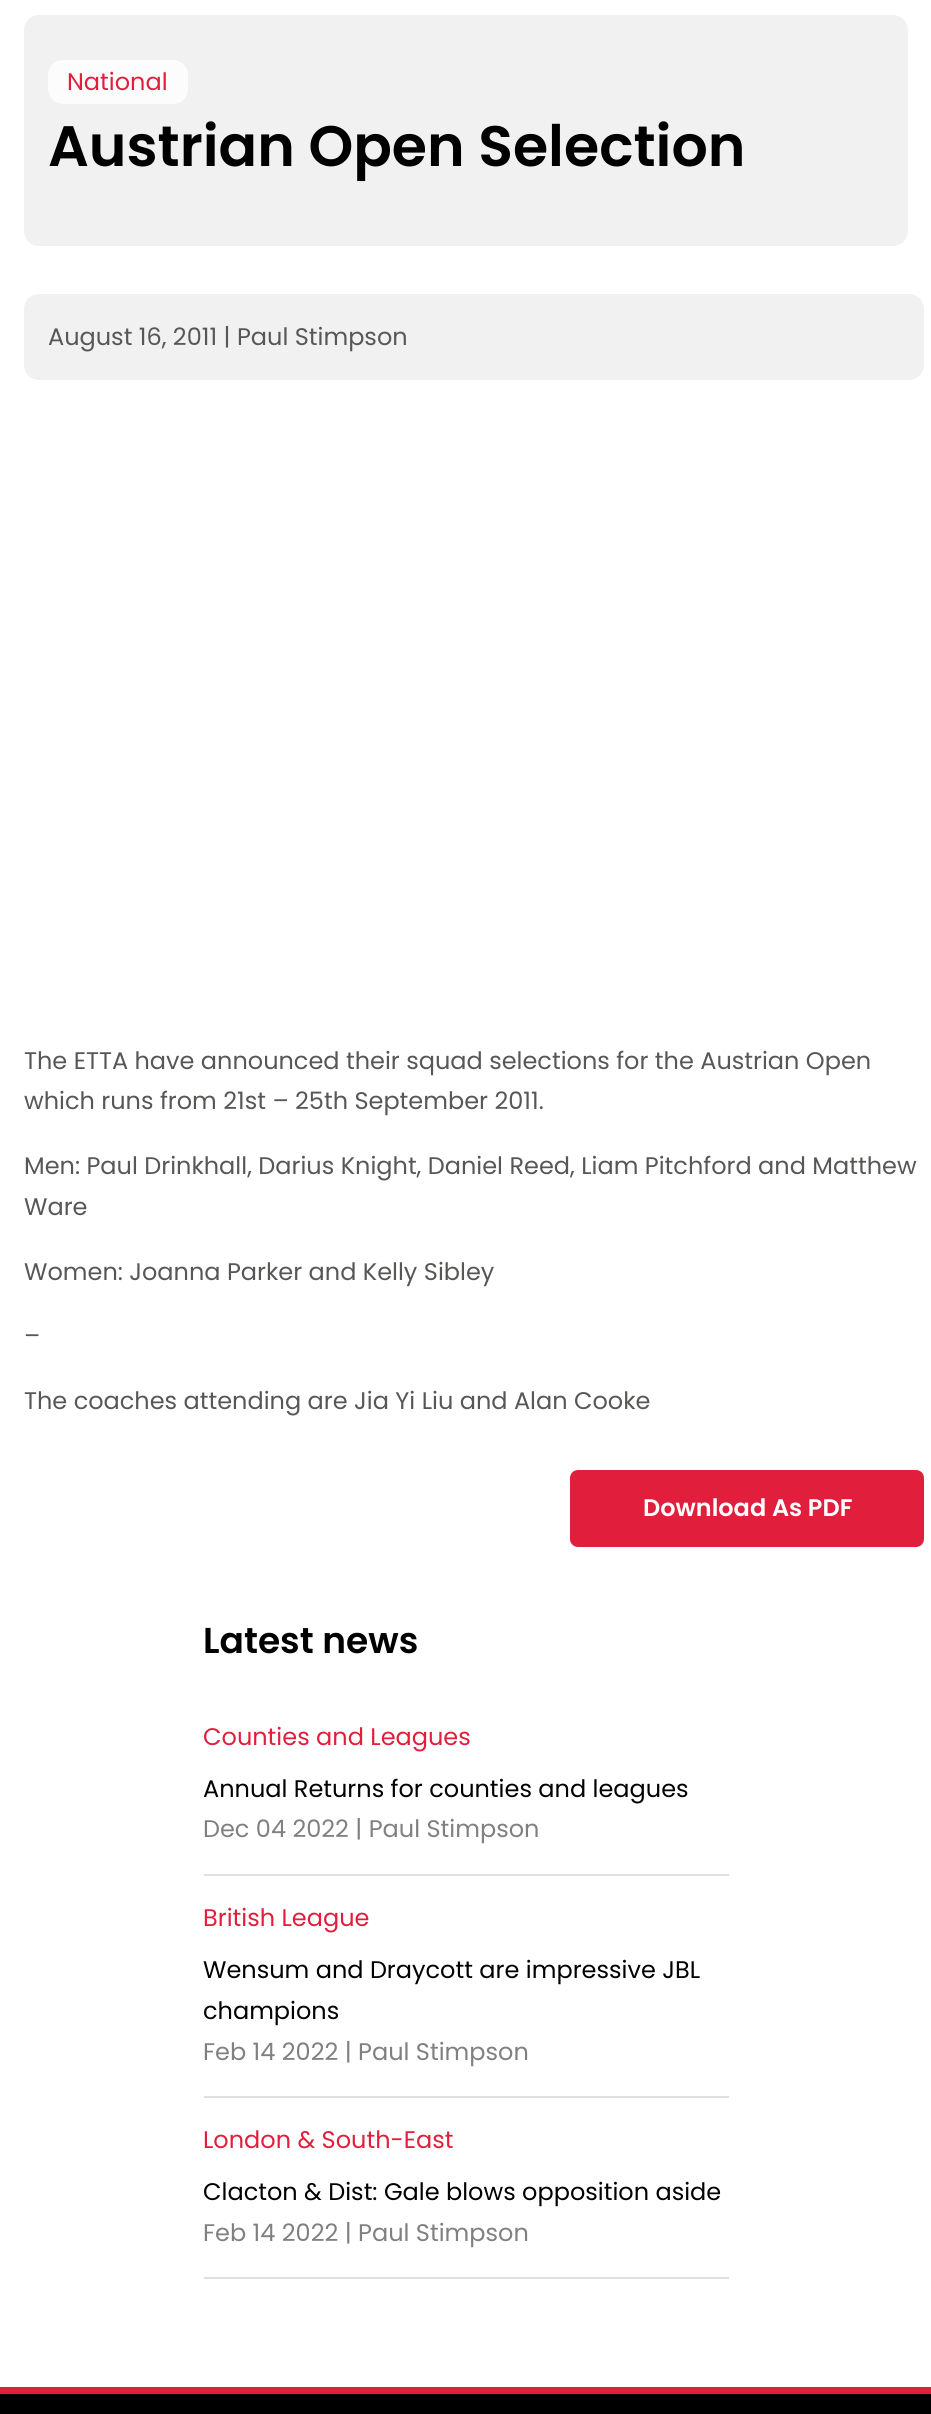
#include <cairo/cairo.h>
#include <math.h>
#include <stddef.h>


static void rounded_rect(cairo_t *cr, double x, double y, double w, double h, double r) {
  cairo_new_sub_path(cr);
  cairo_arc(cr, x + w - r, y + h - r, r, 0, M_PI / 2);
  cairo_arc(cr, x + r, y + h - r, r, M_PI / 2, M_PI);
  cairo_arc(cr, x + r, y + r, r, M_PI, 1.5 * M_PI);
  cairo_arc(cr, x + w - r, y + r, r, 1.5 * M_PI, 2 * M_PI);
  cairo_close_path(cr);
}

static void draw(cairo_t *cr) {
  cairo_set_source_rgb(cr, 1, 1, 1);
  cairo_paint(cr);
  cairo_set_source_rgb(cr, 241 / 255.0, 241 / 255.0, 241 / 255.0);
  rounded_rect(cr, 24, 15, 884, 231, 15);
  cairo_fill(cr);
  cairo_set_source_rgb(cr, 252 / 255.0, 252 / 255.0, 252 / 255.0);
  rounded_rect(cr, 48, 60, 140, 44, 15);
  cairo_fill(cr);
  cairo_set_source_rgb(cr, 241 / 255.0, 241 / 255.0, 241 / 255.0);
  rounded_rect(cr, 24, 294, 900, 86, 15);
  cairo_fill(cr);
  cairo_set_source_rgb(cr, 225 / 255.0, 31 / 255.0, 60 / 255.0);
  rounded_rect(cr, 570, 1470, 354, 77, 8);
  cairo_fill(cr);
  cairo_set_source_rgb(cr, 224 / 255.0, 224 / 255.0, 224 / 255.0);
  cairo_rectangle(cr, 204, 1874, 525, 2);
  cairo_fill(cr);
  cairo_rectangle(cr, 204, 2096, 525, 2);
  cairo_fill(cr);
  cairo_rectangle(cr, 204, 2277, 525, 2);
  cairo_fill(cr);
  cairo_set_source_rgb(cr, 0, 0, 0);
  cairo_rectangle(cr, 0, 2394, 931, 20);
  cairo_fill(cr);
  cairo_set_source_rgb(cr, 225 / 255.0, 31 / 255.0, 60 / 255.0);
  cairo_rectangle(cr, 0, 2387, 931, 7);
  cairo_fill(cr);
  cairo_select_font_face(cr, "Poppins", CAIRO_FONT_SLANT_NORMAL, CAIRO_FONT_WEIGHT_NORMAL);
  cairo_set_font_size(cr, 24);
  cairo_move_to(cr, 67, 90);
  cairo_show_text(cr, "National");
  cairo_select_font_face(cr, "Poppins SemiBold", CAIRO_FONT_SLANT_NORMAL, CAIRO_FONT_WEIGHT_NORMAL);
  cairo_set_font_size(cr, 57);
  cairo_set_source_rgb(cr, 0, 0, 0);
  cairo_move_to(cr, 48, 166);
  cairo_show_text(cr, "Austrian Open Selection");
  cairo_select_font_face(cr, "Poppins", CAIRO_FONT_SLANT_NORMAL, CAIRO_FONT_WEIGHT_NORMAL);
  cairo_set_font_size(cr, 24);
  cairo_set_source_rgb(cr, 87 / 255.0, 87 / 255.0, 86 / 255.0);
  cairo_move_to(cr, 48, 345);
  cairo_show_text(cr, "August 16, 2011 | Paul Stimpson");
  cairo_move_to(cr, 24, 1069);
  cairo_show_text(cr, "The ETTA have announced their squad selections for the Austrian Open");
  cairo_move_to(cr, 24, 1109);
  cairo_show_text(cr, "which runs from 21st – 25th September 2011.");
  cairo_move_to(cr, 24, 1174);
  cairo_show_text(cr, "Men: Paul Drinkhall, Darius Knight, Daniel Reed, Liam Pitchford and Matthew");
  cairo_move_to(cr, 24, 1215);
  cairo_show_text(cr, "Ware");
  cairo_move_to(cr, 24, 1280);
  cairo_show_text(cr, "Women: Joanna Parker and Kelly Sibley");
  cairo_move_to(cr, 24, 1344);
  cairo_show_text(cr, "–");
  cairo_move_to(cr, 24, 1409);
  cairo_show_text(cr, "The coaches attending are Jia Yi Liu and Alan Cooke");
  cairo_select_font_face(cr, "Poppins SemiBold", CAIRO_FONT_SLANT_NORMAL, CAIRO_FONT_WEIGHT_NORMAL);
  cairo_set_source_rgb(cr, 1, 1, 1);
  cairo_move_to(cr, 643, 1516);
  cairo_show_text(cr, "Download As PDF");
  cairo_set_font_size(cr, 36);
  cairo_set_source_rgb(cr, 0, 0, 0);
  cairo_move_to(cr, 203, 1653);
  cairo_show_text(cr, "Latest news");
  cairo_select_font_face(cr, "Poppins", CAIRO_FONT_SLANT_NORMAL, CAIRO_FONT_WEIGHT_NORMAL);
  cairo_set_font_size(cr, 24);
  cairo_set_source_rgb(cr, 225 / 255.0, 31 / 255.0, 60 / 255.0);
  cairo_move_to(cr, 203, 1745);
  cairo_show_text(cr, "Counties and Leagues");
  cairo_set_source_rgb(cr, 0, 0, 0);
  cairo_move_to(cr, 203, 1797);
  cairo_show_text(cr, "Annual Returns for counties and leagues");
  cairo_set_source_rgb(cr, 128 / 255.0, 128 / 255.0, 128 / 255.0);
  cairo_move_to(cr, 203, 1837);
  cairo_show_text(cr, "Dec 04 2022 | Paul Stimpson");
  cairo_set_source_rgb(cr, 225 / 255.0, 31 / 255.0, 60 / 255.0);
  cairo_move_to(cr, 203, 1926);
  cairo_show_text(cr, "British League");
  cairo_set_source_rgb(cr, 0, 0, 0);
  cairo_move_to(cr, 203, 1978);
  cairo_show_text(cr, "Wensum and Draycott are impressive JBL");
  cairo_move_to(cr, 203, 2019);
  cairo_show_text(cr, "champions");
  cairo_set_source_rgb(cr, 128 / 255.0, 128 / 255.0, 128 / 255.0);
  cairo_move_to(cr, 203, 2060);
  cairo_show_text(cr, "Feb 14 2022 | Paul Stimpson");
  cairo_set_source_rgb(cr, 225 / 255.0, 31 / 255.0, 60 / 255.0);
  cairo_move_to(cr, 203, 2148);
  cairo_show_text(cr, "London & South-East");
  cairo_set_source_rgb(cr, 0, 0, 0);
  cairo_move_to(cr, 203, 2200);
  cairo_show_text(cr, "Clacton & Dist: Gale blows opposition aside");
  cairo_set_source_rgb(cr, 128 / 255.0, 128 / 255.0, 128 / 255.0);
  cairo_move_to(cr, 203, 2241);
  cairo_show_text(cr, "Feb 14 2022 | Paul Stimpson");
}

int main(void) {
  cairo_surface_t *surface = cairo_image_surface_create(CAIRO_FORMAT_RGB24, 931, 2414);
  cairo_t *cr = cairo_create(surface);
  cairo_font_options_t *options = cairo_font_options_create();
  cairo_font_options_set_hint_metrics(options, CAIRO_HINT_METRICS_OFF);
  cairo_font_options_set_hint_style(options, CAIRO_HINT_STYLE_NONE);
  cairo_set_font_options(cr, options);
  cairo_set_miter_limit(cr, 4);
  draw(cr);
  cairo_surface_write_to_png(surface, "out.png");
  cairo_font_options_destroy(options);
  cairo_destroy(cr);
  cairo_surface_destroy(surface);
  return 0;
}
